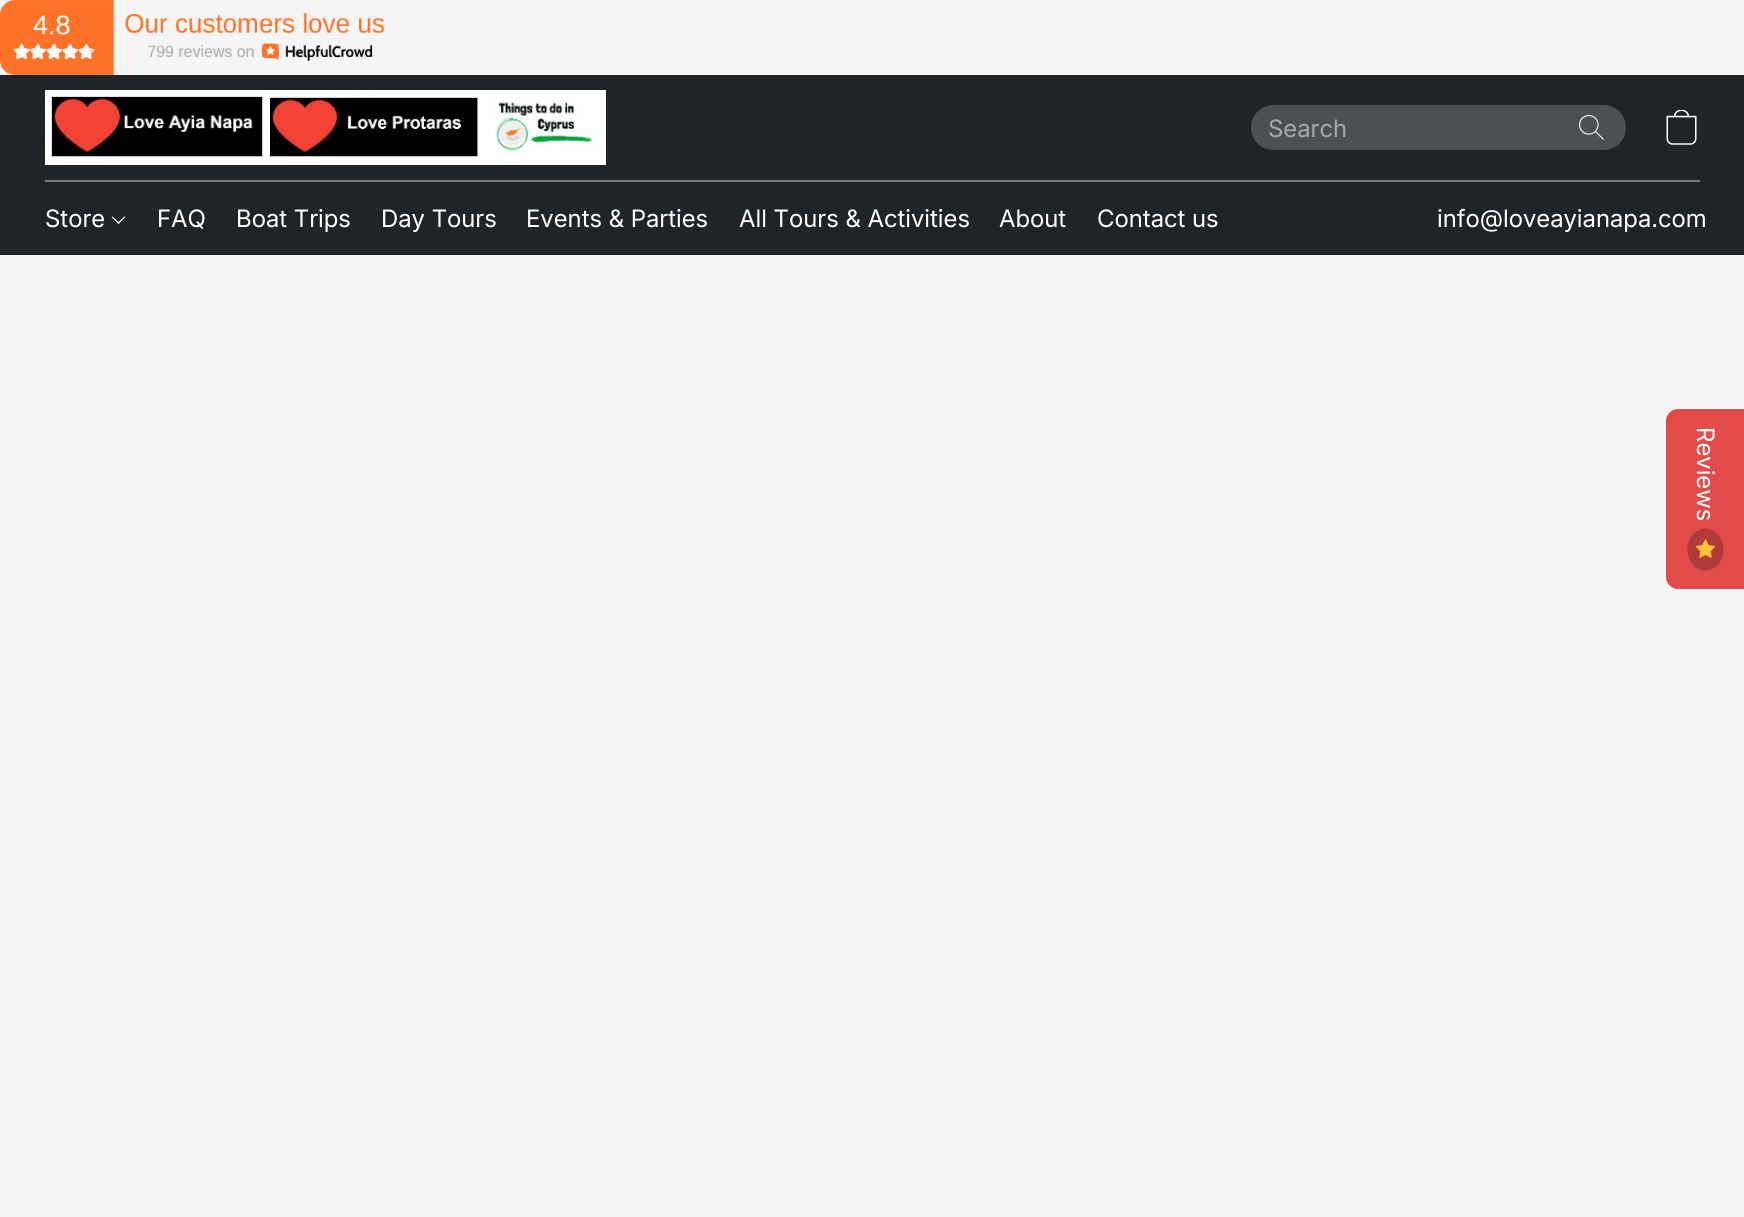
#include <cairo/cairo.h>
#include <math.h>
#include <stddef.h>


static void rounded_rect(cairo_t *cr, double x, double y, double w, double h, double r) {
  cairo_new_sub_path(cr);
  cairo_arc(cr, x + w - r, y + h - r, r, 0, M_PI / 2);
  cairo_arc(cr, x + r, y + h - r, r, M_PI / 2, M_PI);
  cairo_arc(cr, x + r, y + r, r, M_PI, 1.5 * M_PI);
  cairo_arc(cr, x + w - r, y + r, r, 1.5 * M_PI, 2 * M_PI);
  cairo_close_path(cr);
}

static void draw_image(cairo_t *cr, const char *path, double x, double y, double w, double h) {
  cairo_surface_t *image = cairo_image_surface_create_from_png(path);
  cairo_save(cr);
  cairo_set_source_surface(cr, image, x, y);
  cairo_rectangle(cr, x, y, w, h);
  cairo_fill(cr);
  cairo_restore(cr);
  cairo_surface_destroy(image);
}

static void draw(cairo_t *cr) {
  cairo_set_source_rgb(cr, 245 / 255.0, 245 / 255.0, 245 / 255.0);
  cairo_paint(cr);
  draw_image(cr, "images/1.png", 0, 0, 408, 75);
  cairo_set_source_rgb(cr, 33 / 255.0, 36 / 255.0, 39 / 255.0);
  cairo_rectangle(cr, 0, 75, 1744, 180);
  cairo_fill(cr);
  draw_image(cr, "images/2.png", 45, 90, 561, 75);
  cairo_set_source_rgb(cr, 77 / 255.0, 80 / 255.0, 82 / 255.0);
  rounded_rect(cr, 1251, 105, 375, 45, 22.5);
  cairo_fill(cr);
  draw_image(cr, "images/3.png", 1579, 115, 25, 25);
  draw_image(cr, "images/4.png", 1666, 110, 31, 35);
  cairo_set_source_rgb(cr, 122 / 255.0, 124 / 255.0, 125 / 255.0);
  cairo_rectangle(cr, 45, 180, 1655, 2);
  cairo_fill(cr);
  cairo_set_source_rgb(cr, 1, 1, 1);
  cairo_new_path(cr);
  cairo_move_to(cr, 117.5, 223);
  cairo_line_to(cr, 124.5, 216.5);
  cairo_line_to(cr, 125.5, 217);
  cairo_line_to(cr, 118.5, 224);
  cairo_close_path(cr);
  cairo_fill(cr);
  cairo_new_path(cr);
  cairo_move_to(cr, 111.5, 217);
  cairo_line_to(cr, 112.5, 216.5);
  cairo_line_to(cr, 119.5, 223);
  cairo_line_to(cr, 118.5, 224);
  cairo_close_path(cr);
  cairo_fill(cr);
  cairo_set_source_rgb(cr, 227 / 255.0, 74 / 255.0, 74 / 255.0);
  cairo_new_path(cr);
  cairo_move_to(cr, 1744, 409);
  cairo_line_to(cr, 1744, 589);
  cairo_line_to(cr, 1678, 589);
  cairo_curve_to(cr, 1672, 589, 1666, 584, 1666, 577);
  cairo_line_to(cr, 1666, 421);
  cairo_curve_to(cr, 1666, 414, 1672, 409, 1678, 409);
  cairo_close_path(cr);
  cairo_fill(cr);
  cairo_set_source_rgb(cr, 177 / 255.0, 58 / 255.0, 58 / 255.0);
  cairo_new_path(cr);
  cairo_move_to(cr, 1705.5, 528.5);
  cairo_curve_to(cr, 1715.5, 528.5, 1723.5, 538, 1723.5, 549.5);
  cairo_curve_to(cr, 1723.5, 561, 1715.5, 570.5, 1705.5, 570.5);
  cairo_curve_to(cr, 1695.5, 570.5, 1687.5, 561, 1687.5, 549.5);
  cairo_curve_to(cr, 1687.5, 538, 1695.5, 528.5, 1705.5, 528.5);
  cairo_close_path(cr);
  cairo_fill(cr);
  draw_image(cr, "images/5.png", 1695, 539, 21, 19);
  cairo_select_font_face(cr, "Inter", CAIRO_FONT_SLANT_NORMAL, CAIRO_FONT_WEIGHT_NORMAL);
  cairo_set_font_size(cr, 24);
  cairo_set_source_rgb(cr, 166 / 255.0, 168 / 255.0, 169 / 255.0);
  cairo_move_to(cr, 1268, 137);
  cairo_show_text(cr, "Search");
  cairo_set_source_rgb(cr, 1, 1, 1);
  cairo_move_to(cr, 45, 227);
  cairo_show_text(cr, "Store");
  cairo_move_to(cr, 157, 227);
  cairo_show_text(cr, "FAQ");
  cairo_move_to(cr, 236, 227);
  cairo_show_text(cr, "Boat Trips");
  cairo_move_to(cr, 381, 227);
  cairo_show_text(cr, "Day Tours");
  cairo_move_to(cr, 526, 227);
  cairo_show_text(cr, "Events & Parties");
  cairo_move_to(cr, 739, 227);
  cairo_show_text(cr, "All Tours & Activities");
  cairo_move_to(cr, 999, 227);
  cairo_show_text(cr, "About");
  cairo_move_to(cr, 1097, 227);
  cairo_show_text(cr, "Contact us");
  cairo_move_to(cr, 1437, 227);
  cairo_show_text(cr, "info@loveayianapa.com");
  cairo_save(cr);
  cairo_translate(cr, 1697, 427);
  cairo_rotate(cr, 90 * M_PI / 180);
  cairo_move_to(cr, 0, 0);
  cairo_show_text(cr, "Reviews");
  cairo_restore(cr);
}

int main(void) {
  cairo_surface_t *surface = cairo_image_surface_create(CAIRO_FORMAT_RGB24, 1744, 1217);
  cairo_t *cr = cairo_create(surface);
  cairo_font_options_t *options = cairo_font_options_create();
  cairo_font_options_set_hint_metrics(options, CAIRO_HINT_METRICS_OFF);
  cairo_font_options_set_hint_style(options, CAIRO_HINT_STYLE_NONE);
  cairo_set_font_options(cr, options);
  cairo_set_miter_limit(cr, 4);
  draw(cr);
  cairo_surface_write_to_png(surface, "out.png");
  cairo_font_options_destroy(options);
  cairo_destroy(cr);
  cairo_surface_destroy(surface);
  return 0;
}
